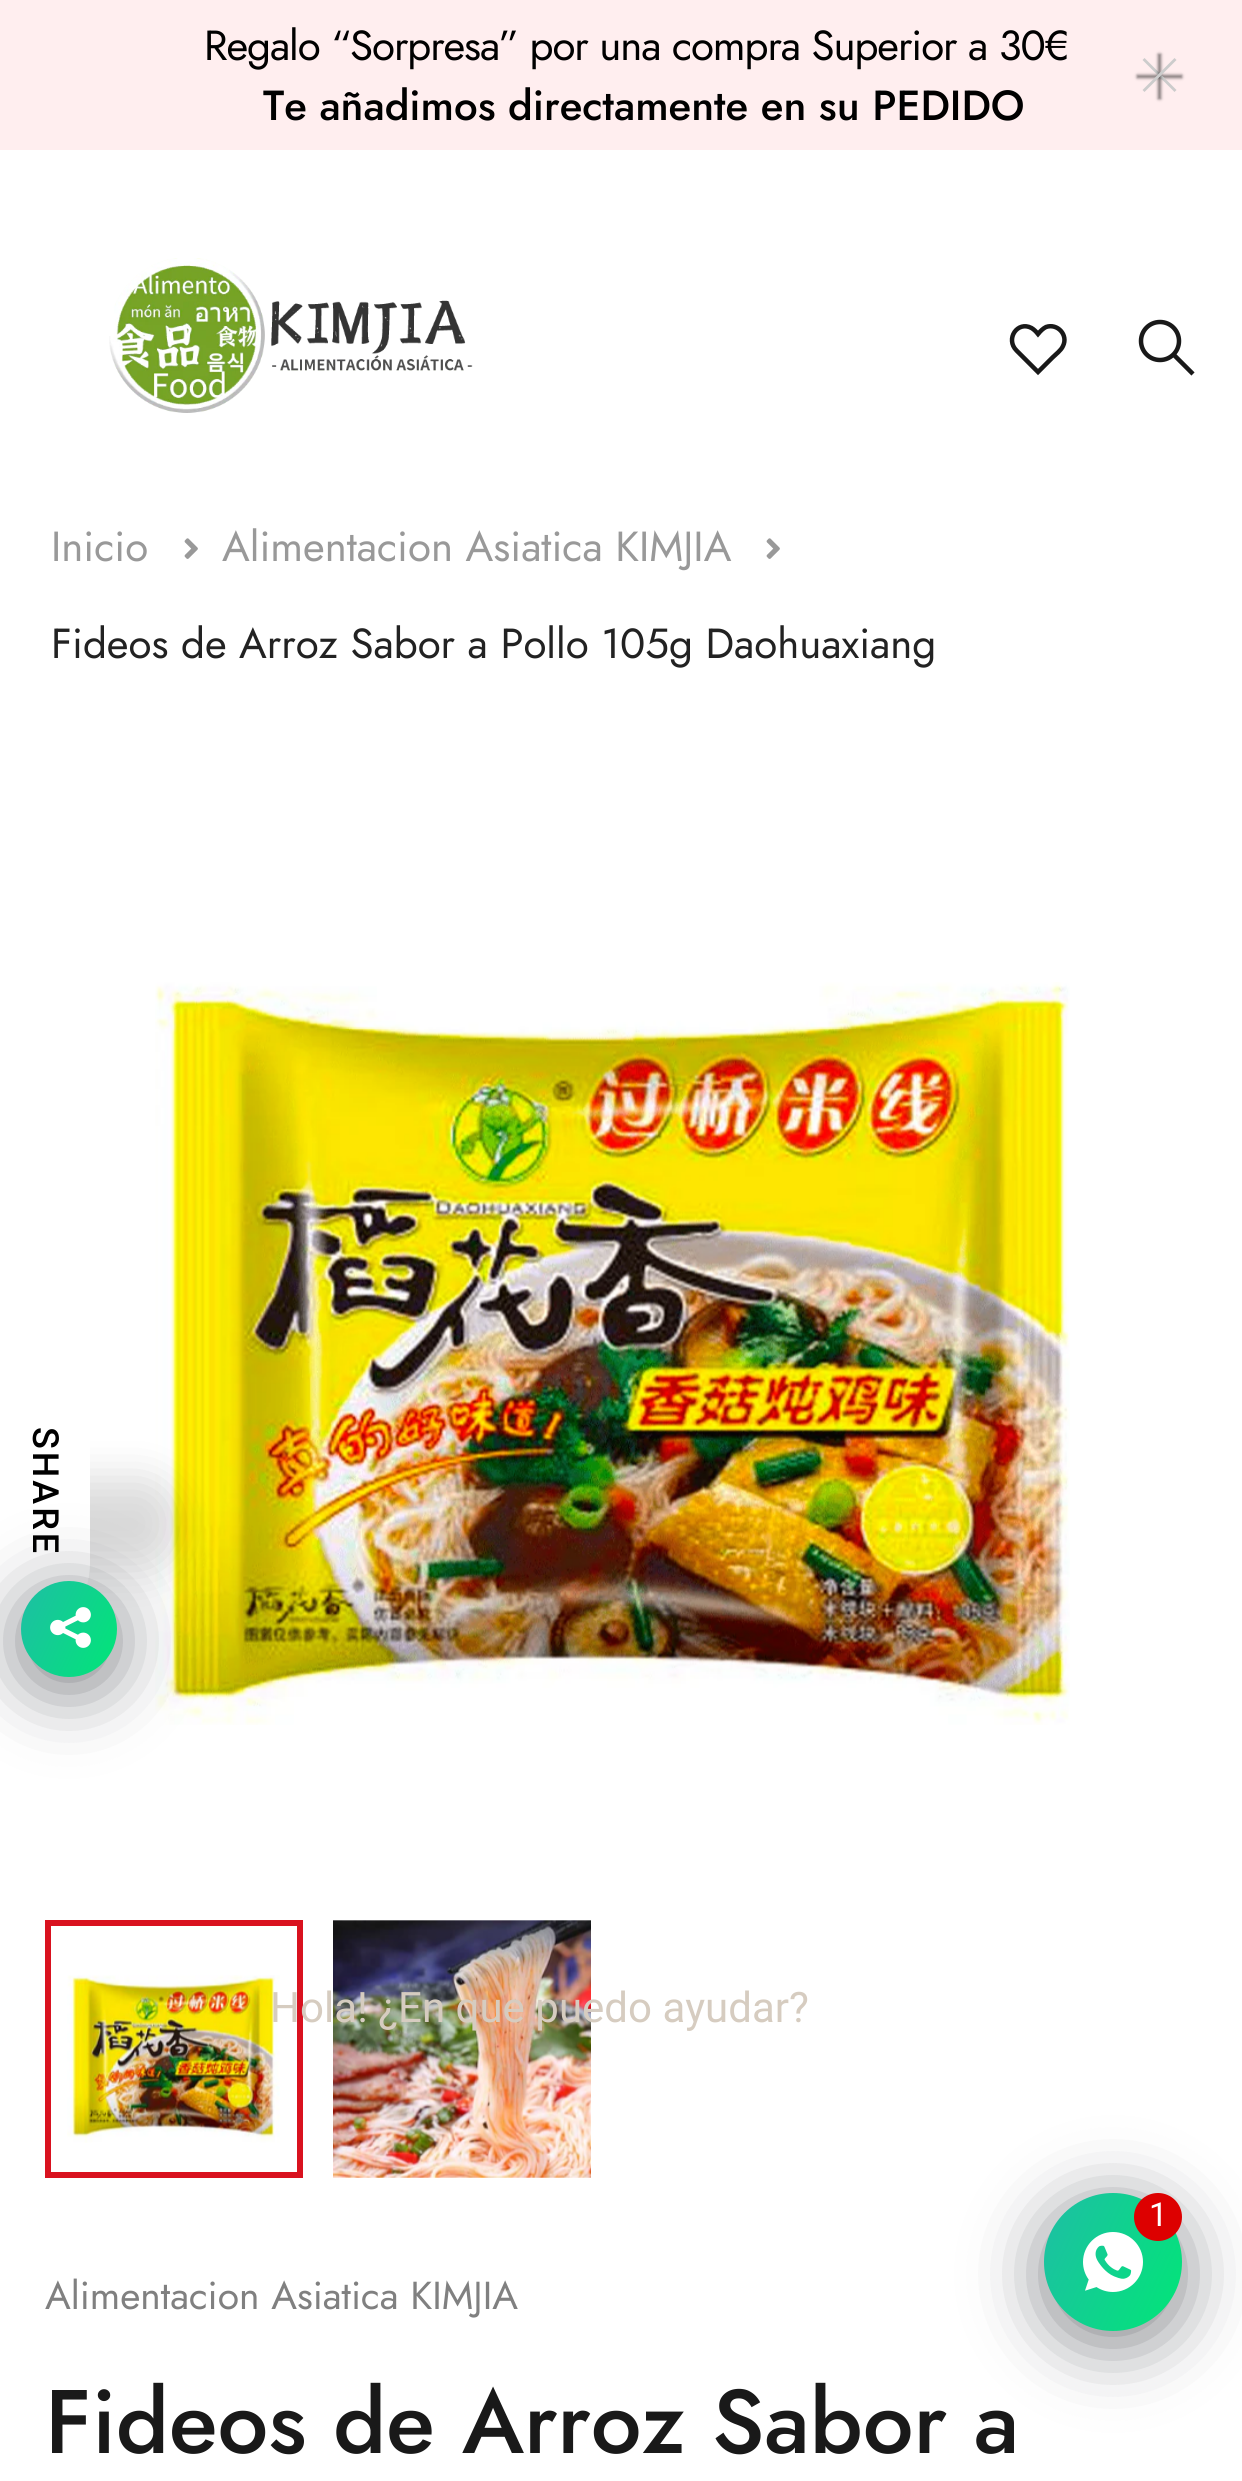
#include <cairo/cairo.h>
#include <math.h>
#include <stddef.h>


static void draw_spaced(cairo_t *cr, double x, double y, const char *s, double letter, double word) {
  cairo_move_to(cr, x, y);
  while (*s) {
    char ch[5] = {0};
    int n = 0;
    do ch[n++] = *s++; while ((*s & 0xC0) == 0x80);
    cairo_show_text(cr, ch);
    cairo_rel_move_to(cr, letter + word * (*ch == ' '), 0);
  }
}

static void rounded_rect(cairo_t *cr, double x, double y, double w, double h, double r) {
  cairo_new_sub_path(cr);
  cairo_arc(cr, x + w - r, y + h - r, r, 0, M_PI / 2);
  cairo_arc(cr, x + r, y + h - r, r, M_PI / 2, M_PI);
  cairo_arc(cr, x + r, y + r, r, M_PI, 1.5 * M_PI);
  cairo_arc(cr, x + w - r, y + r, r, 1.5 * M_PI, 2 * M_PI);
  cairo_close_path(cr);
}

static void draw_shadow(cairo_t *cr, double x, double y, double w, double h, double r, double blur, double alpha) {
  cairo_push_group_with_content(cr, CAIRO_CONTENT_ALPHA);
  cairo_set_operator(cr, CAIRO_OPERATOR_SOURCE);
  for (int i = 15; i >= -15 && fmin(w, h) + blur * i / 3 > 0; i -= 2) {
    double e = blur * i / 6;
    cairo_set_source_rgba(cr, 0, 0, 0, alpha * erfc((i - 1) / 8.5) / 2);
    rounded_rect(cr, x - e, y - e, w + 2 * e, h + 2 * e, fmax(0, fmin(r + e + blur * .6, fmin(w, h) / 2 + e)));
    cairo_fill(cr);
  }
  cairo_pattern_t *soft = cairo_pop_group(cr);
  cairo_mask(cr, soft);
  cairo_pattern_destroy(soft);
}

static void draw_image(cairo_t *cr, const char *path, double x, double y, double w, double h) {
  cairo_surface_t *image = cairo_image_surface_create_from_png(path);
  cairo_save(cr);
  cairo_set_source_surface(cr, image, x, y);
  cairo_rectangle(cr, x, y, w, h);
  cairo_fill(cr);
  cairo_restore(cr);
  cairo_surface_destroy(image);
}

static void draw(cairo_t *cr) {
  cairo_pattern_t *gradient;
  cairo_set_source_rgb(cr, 1, 1, 1);
  cairo_paint(cr);
  cairo_set_source_rgb(cr, 1, 238 / 255.0, 239 / 255.0);
  cairo_rectangle(cr, 0, 0, 1242, 150);
  cairo_fill(cr);
  cairo_set_source_rgb(cr, 0, 0, 0);
  draw_shadow(cr, 1137, 75, 45, 3, 0, 1.5, 0.5);
  cairo_set_source_rgb(cr, 204 / 255.0, 204 / 255.0, 204 / 255.0);
  cairo_new_path(cr);
  cairo_move_to(cr, 1144.5, 58);
  cairo_line_to(cr, 1176.5, 90);
  cairo_line_to(cr, 1174.5, 92);
  cairo_line_to(cr, 1142.5, 60);
  cairo_close_path(cr);
  cairo_fill(cr);
  cairo_set_source_rgb(cr, 0, 0, 0);
  draw_shadow(cr, 1158, 54, 3, 45, 0, 1.5, 0.5);
  cairo_set_source_rgb(cr, 204 / 255.0, 204 / 255.0, 204 / 255.0);
  cairo_new_path(cr);
  cairo_move_to(cr, 1174.5, 58);
  cairo_line_to(cr, 1176.5, 60);
  cairo_line_to(cr, 1144.5, 92);
  cairo_line_to(cr, 1142.5, 90);
  cairo_close_path(cr);
  cairo_fill(cr);
  draw_image(cr, "images/1.png", 109, 258, 364, 155);
  cairo_new_path(cr);
  cairo_move_to(cr, 1016.5, 350.5);
  cairo_curve_to(cr, 1005, 339, 1017.5, 320.5, 1031.5, 328);
  cairo_curve_to(cr, 1034, 329.5, 1036, 331.5, 1038, 334);
  cairo_curve_to(cr, 1040.5, 331, 1043, 328.5, 1046, 327);
  cairo_curve_to(cr, 1057.5, 323, 1068.5, 335, 1063, 346);
  cairo_curve_to(cr, 1061, 350.5, 1056, 354, 1052.5, 357.5);
  cairo_line_to(cr, 1038, 372);
  cairo_close_path(cr);
  cairo_set_source_rgb(cr, 25 / 255.0, 25 / 255.0, 25 / 255.0);
  cairo_set_line_width(cr, 4.5);
  cairo_stroke(cr);
  cairo_new_path(cr);
  cairo_move_to(cr, 1160, 360);
  cairo_curve_to(cr, 1170.5, 360, 1179, 351.5, 1179, 341);
  cairo_curve_to(cr, 1179, 330.5, 1170.5, 322, 1160, 322);
  cairo_curve_to(cr, 1149.5, 322, 1141, 330.5, 1141, 341);
  cairo_curve_to(cr, 1141, 351.5, 1149.5, 360, 1160, 360);
  cairo_close_path(cr);
  cairo_move_to(cr, 1193, 374);
  cairo_line_to(cr, 1173, 354);
  cairo_stroke(cr);
  draw_image(cr, "images/2.png", 184, 538, 14, 21);
  draw_image(cr, "images/2.png", 766, 538, 14, 21);
  draw_image(cr, "images/3.png", 155, 982, 915, 743);
  draw_image(cr, "images/4.png", 67, 1975, 213, 168);
  cairo_rectangle(cr, 48, 1923, 252, 252);
  cairo_set_source_rgb(cr, 217 / 255.0, 18 / 255.0, 31 / 255.0);
  cairo_set_line_width(cr, 6);
  cairo_stroke(cr);
  draw_image(cr, "images/5.png", 333, 1920, 258, 258);
  cairo_set_source_rgb(cr, 0, 0, 0);
  draw_shadow(cr, -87, 1479, 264, 90, 84, 21, 0.15);
  cairo_set_source_rgb(cr, 1, 1, 1);
  cairo_new_path(cr);
  cairo_move_to(cr, 0, 1647);
  cairo_line_to(cr, 0, 1382);
  cairo_line_to(cr, 78, 1382);
  cairo_curve_to(cr, 85, 1382, 90, 1388, 90, 1394);
  cairo_line_to(cr, 90, 1563);
  cairo_curve_to(cr, 90, 1609, 52, 1647, 6, 1647);
  cairo_close_path(cr);
  cairo_fill(cr);
  cairo_set_source_rgb(cr, 2 / 255.0, 6 / 255.0, 16 / 255.0);
  draw_shadow(cr, 21, 1593, 96, 96, 48, 36, 0.5);
  gradient = cairo_pattern_create_linear(11, 1602, 127, 1656);
  cairo_pattern_add_color_stop_rgba(gradient, 0, 30 / 255.0, 190 / 255.0, 165 / 255.0, 1);
  cairo_pattern_add_color_stop_rgba(gradient, 1, 1 / 255.0, 230 / 255.0, 119 / 255.0, 1);
  cairo_set_source(cr, gradient);
  cairo_pattern_destroy(gradient);
  cairo_arc(cr, 69, 1629, 48, 0, 2 * M_PI);
  cairo_fill(cr);
  draw_image(cr, "images/6.png", 50, 1607, 41, 41);
  cairo_set_source_rgb(cr, 2 / 255.0, 6 / 255.0, 16 / 255.0);
  draw_shadow(cr, 1044, 2205, 138, 138, 69, 36, 0.5);
  gradient = cairo_pattern_create_linear(1030, 2223, 1196, 2301);
  cairo_pattern_add_color_stop_rgba(gradient, 0, 30 / 255.0, 190 / 255.0, 165 / 255.0, 1);
  cairo_pattern_add_color_stop_rgba(gradient, 1, 1 / 255.0, 230 / 255.0, 119 / 255.0, 1);
  cairo_set_source(cr, gradient);
  cairo_pattern_destroy(gradient);
  cairo_arc(cr, 1113, 2262, 69, 0, 2 * M_PI);
  cairo_fill(cr);
  draw_image(cr, "images/7.png", 1083, 2232, 60, 60);
  cairo_set_source_rgb(cr, 221 / 255.0, 0, 0);
  cairo_arc(cr, 1158, 2217, 24, 0, 2 * M_PI);
  cairo_fill(cr);
  cairo_select_font_face(cr, "Jost", CAIRO_FONT_SLANT_NORMAL, CAIRO_FONT_WEIGHT_NORMAL);
  cairo_set_font_size(cr, 42);
  cairo_set_source_rgb(cr, 0, 0, 0);
  draw_spaced(cr, 204, 60, "Regalo “Sorpresa” por una compra Superior a 30€", -1.05, 0);
  cairo_select_font_face(cr, "Jost Medium", CAIRO_FONT_SLANT_NORMAL, CAIRO_FONT_WEIGHT_NORMAL);
  cairo_move_to(cr, 263, 120);
  cairo_show_text(cr, "Te añadimos directamente en su PEDIDO");
  cairo_select_font_face(cr, "Jost", CAIRO_FONT_SLANT_NORMAL, CAIRO_FONT_WEIGHT_NORMAL);
  cairo_set_source_rgb(cr, 153 / 255.0, 153 / 255.0, 153 / 255.0);
  cairo_move_to(cr, 51, 561);
  cairo_show_text(cr, "Inicio");
  cairo_move_to(cr, 222, 561);
  cairo_show_text(cr, "Alimentacion Asiatica KIMJIA");
  cairo_set_source_rgb(cr, 34 / 255.0, 34 / 255.0, 34 / 255.0);
  cairo_move_to(cr, 51, 658);
  cairo_show_text(cr, "Fideos de Arroz Sabor a Pollo 105g Daohuaxiang");
  cairo_set_font_size(cr, 39);
  cairo_set_source_rgb(cr, 128 / 255.0, 128 / 255.0, 128 / 255.0);
  cairo_move_to(cr, 45, 2309);
  cairo_show_text(cr, "Alimentacion Asiatica KIMJIA");
  cairo_select_font_face(cr, "Jost Medium", CAIRO_FONT_SLANT_NORMAL, CAIRO_FONT_WEIGHT_NORMAL);
  cairo_set_font_size(cr, 90);
  cairo_set_source_rgb(cr, 25 / 255.0, 25 / 255.0, 25 / 255.0);
  cairo_move_to(cr, 45, 2453);
  cairo_show_text(cr, "Fideos de Arroz Sabor a");
  cairo_select_font_face(cr, "Roboto Medium", CAIRO_FONT_SLANT_NORMAL, CAIRO_FONT_WEIGHT_NORMAL);
  cairo_set_font_size(cr, 36);
  cairo_set_source_rgb(cr, 0, 0, 0);
  cairo_save(cr);
  cairo_translate(cr, 33, 1427);
  cairo_rotate(cr, 90 * M_PI / 180);
  draw_spaced(cr, 0, 0, "SHARE", 3, 0);
  cairo_restore(cr);
  cairo_select_font_face(cr, "Roboto", CAIRO_FONT_SLANT_NORMAL, CAIRO_FONT_WEIGHT_NORMAL);
  cairo_set_font_size(cr, 42);
  cairo_set_source_rgb(cr, 214 / 255.0, 204 / 255.0, 192 / 255.0);
  cairo_move_to(cr, 270, 2022);
  cairo_show_text(cr, "Hola! ¿En que puedo ayudar?");
  cairo_set_font_size(cr, 33);
  cairo_set_source_rgb(cr, 1, 1, 1);
  cairo_move_to(cr, 1149, 2226);
  cairo_show_text(cr, "1");
}

int main(void) {
  cairo_surface_t *surface = cairo_image_surface_create(CAIRO_FORMAT_RGB24, 1242, 2481);
  cairo_t *cr = cairo_create(surface);
  cairo_font_options_t *options = cairo_font_options_create();
  cairo_font_options_set_hint_metrics(options, CAIRO_HINT_METRICS_OFF);
  cairo_font_options_set_hint_style(options, CAIRO_HINT_STYLE_NONE);
  cairo_set_font_options(cr, options);
  cairo_set_miter_limit(cr, 4);
  draw(cr);
  cairo_surface_write_to_png(surface, "out.png");
  cairo_font_options_destroy(options);
  cairo_destroy(cr);
  cairo_surface_destroy(surface);
  return 0;
}
